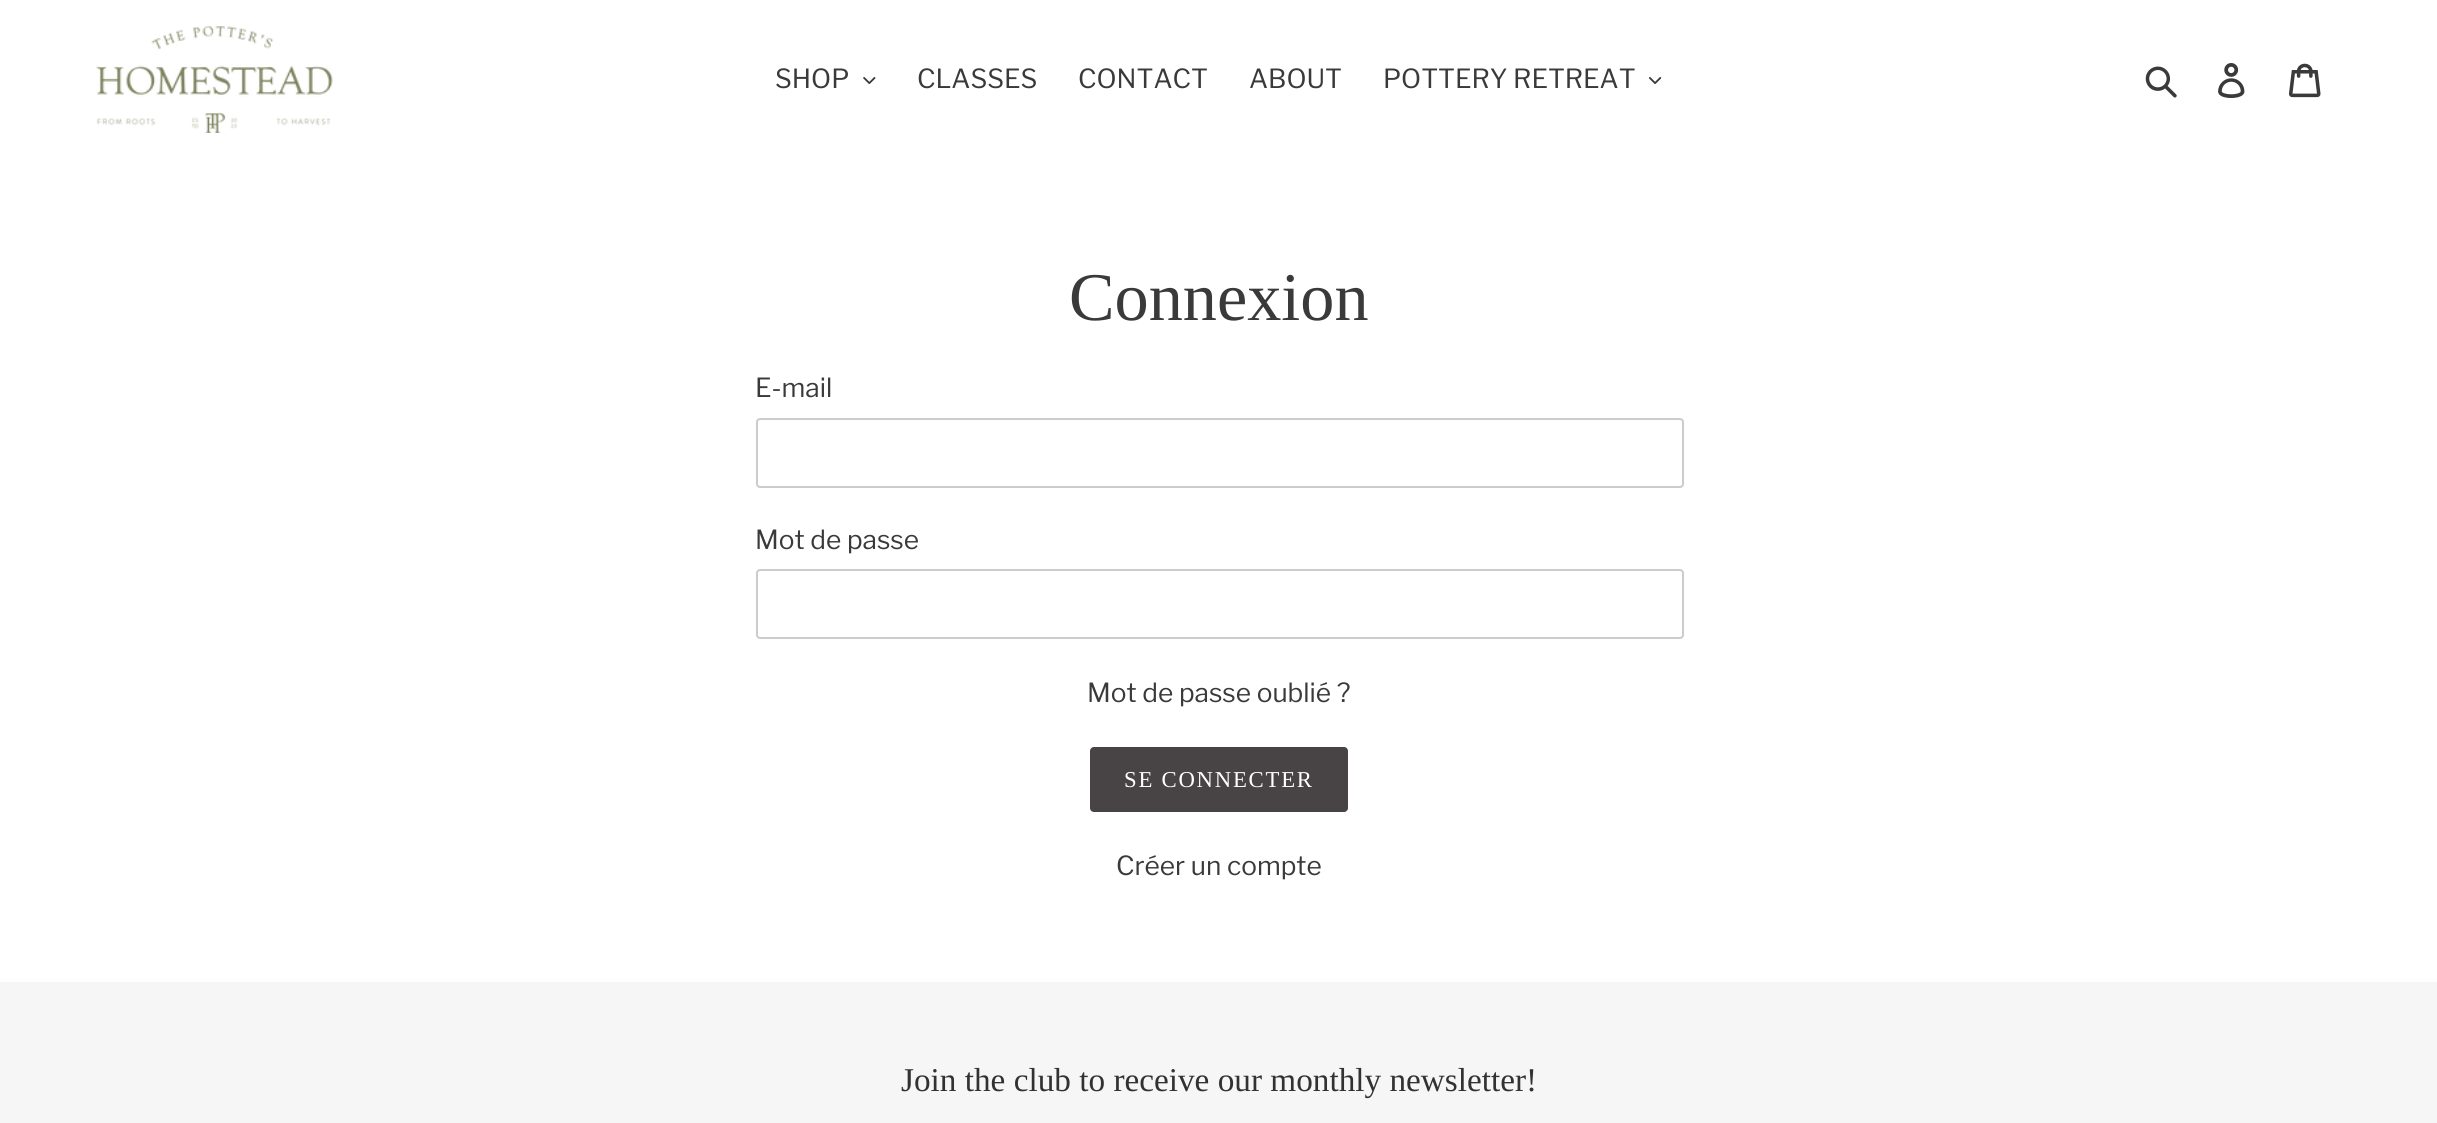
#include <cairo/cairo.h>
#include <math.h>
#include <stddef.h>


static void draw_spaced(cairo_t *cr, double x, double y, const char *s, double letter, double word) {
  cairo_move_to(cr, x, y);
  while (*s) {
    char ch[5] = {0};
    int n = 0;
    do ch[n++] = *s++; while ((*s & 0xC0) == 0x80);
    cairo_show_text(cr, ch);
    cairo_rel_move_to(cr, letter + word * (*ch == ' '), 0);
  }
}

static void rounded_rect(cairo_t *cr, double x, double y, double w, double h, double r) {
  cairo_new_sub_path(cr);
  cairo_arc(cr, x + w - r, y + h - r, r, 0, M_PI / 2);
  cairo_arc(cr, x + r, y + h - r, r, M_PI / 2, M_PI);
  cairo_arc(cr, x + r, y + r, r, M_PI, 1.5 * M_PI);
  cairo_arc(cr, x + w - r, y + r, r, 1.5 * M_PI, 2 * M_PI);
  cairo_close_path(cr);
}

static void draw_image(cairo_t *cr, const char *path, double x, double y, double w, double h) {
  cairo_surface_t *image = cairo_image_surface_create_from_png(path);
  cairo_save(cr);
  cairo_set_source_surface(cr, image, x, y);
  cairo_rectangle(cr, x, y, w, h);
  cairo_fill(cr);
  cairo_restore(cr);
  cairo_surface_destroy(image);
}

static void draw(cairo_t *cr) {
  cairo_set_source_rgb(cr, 1, 1, 1);
  cairo_paint(cr);
  draw_image(cr, "images/1.png", 96, 26, 237, 107);
  draw_image(cr, "images/2.png", 863, 77, 13, 7);
  draw_image(cr, "images/3.png", 1649, 77, 13, 7);
  draw_image(cr, "images/4.png", 2145, 66, 32, 32);
  draw_image(cr, "images/5.png", 2218, 63, 27, 35);
  draw_image(cr, "images/6.png", 2289, 63, 32, 35);
  rounded_rect(cr, 757, 419, 926, 68, 3);
  cairo_set_source_rgb(cr, 204 / 255.0, 204 / 255.0, 204 / 255.0);
  cairo_stroke(cr);
  rounded_rect(cr, 757, 570, 926, 68, 3);
  cairo_stroke(cr);
  cairo_set_source_rgb(cr, 72 / 255.0, 67 / 255.0, 68 / 255.0);
  rounded_rect(cr, 1090, 747, 258, 65, 4);
  cairo_fill(cr);
  cairo_set_source_rgb(cr, 246 / 255.0, 246 / 255.0, 246 / 255.0);
  cairo_rectangle(cr, 0, 982, 2437, 141);
  cairo_fill(cr);
  cairo_select_font_face(cr, "Libre Franklin", CAIRO_FONT_SLANT_NORMAL, CAIRO_FONT_WEIGHT_NORMAL);
  cairo_set_font_size(cr, 26.25);
  cairo_set_source_rgb(cr, 58 / 255.0, 58 / 255.0, 58 / 255.0);
  cairo_move_to(cr, 775, 88);
  cairo_show_text(cr, "SHOP");
  cairo_move_to(cr, 917, 88);
  cairo_show_text(cr, "CLASSES");
  cairo_move_to(cr, 1078, 88);
  cairo_show_text(cr, "CONTACT");
  cairo_move_to(cr, 1249, 88);
  cairo_show_text(cr, "ABOUT");
  cairo_move_to(cr, 1383, 88);
  cairo_show_text(cr, "POTTERY RETREAT");
  cairo_select_font_face(cr, "Liberation Serif", CAIRO_FONT_SLANT_NORMAL, CAIRO_FONT_WEIGHT_NORMAL);
  cairo_set_font_size(cr, 68.25);
  cairo_move_to(cr, 1069, 320);
  cairo_show_text(cr, "Connexion");
  cairo_select_font_face(cr, "Libre Franklin", CAIRO_FONT_SLANT_NORMAL, CAIRO_FONT_WEIGHT_NORMAL);
  cairo_set_font_size(cr, 26.25);
  cairo_move_to(cr, 755, 397);
  cairo_show_text(cr, "E-mail");
  cairo_move_to(cr, 755, 549);
  cairo_show_text(cr, "Mot de passe");
  cairo_move_to(cr, 1087, 702);
  cairo_show_text(cr, "Mot de passe oublié ?");
  cairo_select_font_face(cr, "Liberation Serif", CAIRO_FONT_SLANT_NORMAL, CAIRO_FONT_WEIGHT_NORMAL);
  cairo_set_font_size(cr, 22.75);
  cairo_set_source_rgb(cr, 1, 1, 1);
  draw_spaced(cr, 1124, 787, "SE CONNECTER", 1.75, 0);
  cairo_select_font_face(cr, "Libre Franklin", CAIRO_FONT_SLANT_NORMAL, CAIRO_FONT_WEIGHT_NORMAL);
  cairo_set_font_size(cr, 26.25);
  cairo_set_source_rgb(cr, 58 / 255.0, 58 / 255.0, 58 / 255.0);
  cairo_move_to(cr, 1116, 875);
  cairo_show_text(cr, "Créer un compte");
  cairo_select_font_face(cr, "Liberation Serif", CAIRO_FONT_SLANT_NORMAL, CAIRO_FONT_WEIGHT_NORMAL);
  cairo_set_font_size(cr, 33.25);
  cairo_set_source_rgb(cr, 51 / 255.0, 50 / 255.0, 50 / 255.0);
  cairo_move_to(cr, 901, 1091);
  cairo_show_text(cr, "Join the club to receive our monthly newsletter!");
}

int main(void) {
  cairo_surface_t *surface = cairo_image_surface_create(CAIRO_FORMAT_RGB24, 2437, 1123);
  cairo_t *cr = cairo_create(surface);
  cairo_font_options_t *options = cairo_font_options_create();
  cairo_font_options_set_hint_metrics(options, CAIRO_HINT_METRICS_OFF);
  cairo_font_options_set_hint_style(options, CAIRO_HINT_STYLE_NONE);
  cairo_set_font_options(cr, options);
  cairo_set_miter_limit(cr, 4);
  draw(cr);
  cairo_surface_write_to_png(surface, "out.png");
  cairo_font_options_destroy(options);
  cairo_destroy(cr);
  cairo_surface_destroy(surface);
  return 0;
}
